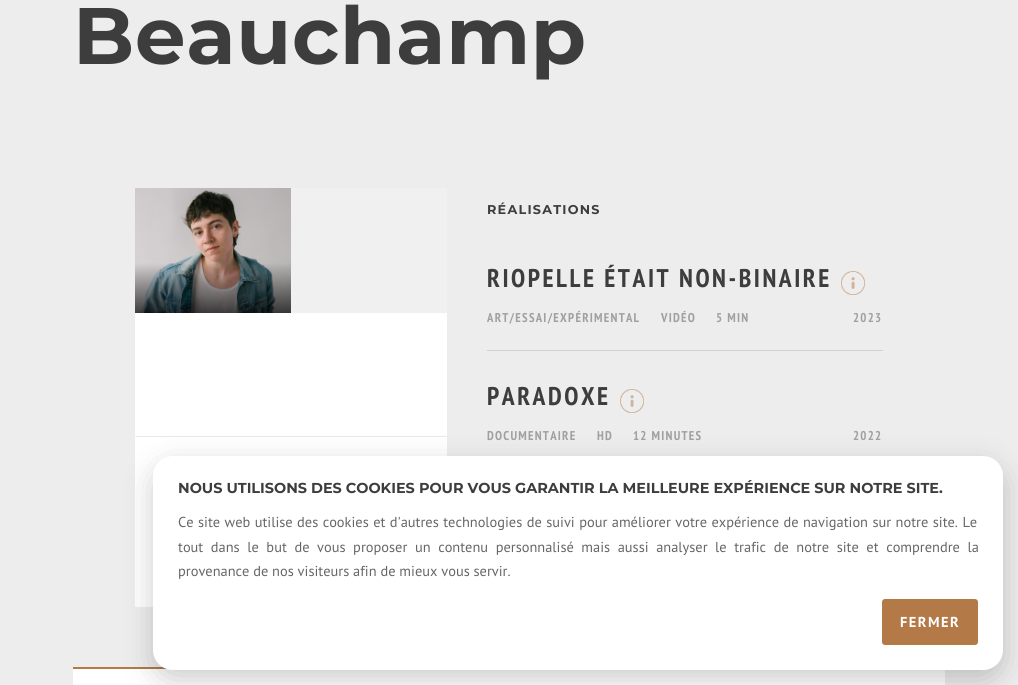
#include <cairo/cairo.h>
#include <math.h>
#include <stddef.h>


static void draw_spaced(cairo_t *cr, double x, double y, const char *s, double letter, double word) {
  cairo_move_to(cr, x, y);
  while (*s) {
    char ch[5] = {0};
    int n = 0;
    do ch[n++] = *s++; while ((*s & 0xC0) == 0x80);
    cairo_show_text(cr, ch);
    cairo_rel_move_to(cr, letter + word * (*ch == ' '), 0);
  }
}

static void rounded_rect(cairo_t *cr, double x, double y, double w, double h, double r) {
  cairo_new_sub_path(cr);
  cairo_arc(cr, x + w - r, y + h - r, r, 0, M_PI / 2);
  cairo_arc(cr, x + r, y + h - r, r, M_PI / 2, M_PI);
  cairo_arc(cr, x + r, y + r, r, M_PI, 1.5 * M_PI);
  cairo_arc(cr, x + w - r, y + r, r, 1.5 * M_PI, 2 * M_PI);
  cairo_close_path(cr);
}

static void draw_shadow(cairo_t *cr, double x, double y, double w, double h, double r, double blur, double alpha) {
  cairo_push_group_with_content(cr, CAIRO_CONTENT_ALPHA);
  cairo_set_operator(cr, CAIRO_OPERATOR_SOURCE);
  for (int i = 15; i >= -15 && fmin(w, h) + blur * i / 3 > 0; i -= 2) {
    double e = blur * i / 6;
    cairo_set_source_rgba(cr, 0, 0, 0, alpha * erfc((i - 1) / 8.5) / 2);
    rounded_rect(cr, x - e, y - e, w + 2 * e, h + 2 * e, fmax(0, fmin(r + e + blur * .6, fmin(w, h) / 2 + e)));
    cairo_fill(cr);
  }
  cairo_pattern_t *soft = cairo_pop_group(cr);
  cairo_mask(cr, soft);
  cairo_pattern_destroy(soft);
}

static void draw_image(cairo_t *cr, const char *path, double x, double y, double w, double h) {
  cairo_surface_t *image = cairo_image_surface_create_from_png(path);
  cairo_save(cr);
  cairo_set_source_surface(cr, image, x, y);
  cairo_rectangle(cr, x, y, w, h);
  cairo_fill(cr);
  cairo_restore(cr);
  cairo_surface_destroy(image);
}

static void draw(cairo_t *cr) {
  cairo_set_source_rgb(cr, 237 / 255.0, 237 / 255.0, 237 / 255.0);
  cairo_paint(cr);
  draw_image(cr, "images/1.png", 135, 188, 156, 125);
  cairo_set_source_rgb(cr, 240 / 255.0, 240 / 255.0, 240 / 255.0);
  cairo_rectangle(cr, 291, 188, 156, 125);
  cairo_fill(cr);
  cairo_set_source_rgb(cr, 1, 1, 1);
  cairo_rectangle(cr, 135, 313, 312, 294);
  cairo_fill(cr);
  cairo_set_source_rgb(cr, 233 / 255.0, 233 / 255.0, 233 / 255.0);
  cairo_new_path(cr);
  cairo_move_to(cr, 447, 437);
  cairo_line_to(cr, 135, 437);
  cairo_line_to(cr, 136, 436);
  cairo_line_to(cr, 446, 436);
  cairo_close_path(cr);
  cairo_fill(cr);
  cairo_set_source_rgb(cr, 209 / 255.0, 209 / 255.0, 209 / 255.0);
  cairo_rectangle(cr, 487, 350, 396, 1);
  cairo_fill(cr);
  draw_image(cr, "images/2.png", 841, 271, 24, 24);
  draw_image(cr, "images/3.png", 620, 389, 24, 24);
  cairo_set_source_rgb(cr, 1, 1, 1);
  cairo_rectangle(cr, 73, 669, 872, 16);
  cairo_fill(cr);
  cairo_set_source_rgb(cr, 179 / 255.0, 121 / 255.0, 71 / 255.0);
  cairo_rectangle(cr, 73, 667, 94, 2);
  cairo_fill(cr);
  cairo_set_source_rgb(cr, 2 / 255.0, 2 / 255.0, 3 / 255.0);
  draw_shadow(cr, 153, 466, 850, 214, 20, 15, 0.2);
  cairo_set_source_rgb(cr, 1, 1, 1);
  rounded_rect(cr, 153, 456, 850, 214, 20);
  cairo_fill(cr);
  cairo_set_source_rgb(cr, 179 / 255.0, 121 / 255.0, 71 / 255.0);
  rounded_rect(cr, 882, 599, 96, 46, 3);
  cairo_fill(cr);
  cairo_select_font_face(cr, "Montserrat", CAIRO_FONT_SLANT_NORMAL, CAIRO_FONT_WEIGHT_BOLD);
  cairo_set_font_size(cr, 80);
  cairo_set_source_rgb(cr, 61 / 255.0, 61 / 255.0, 61 / 255.0);
  draw_spaced(cr, 73, 64, "Beauchamp", 0.75, 0);
  cairo_set_font_size(cr, 12.75);
  draw_spaced(cr, 487, 214, "RÉALISATIONS", 1.25, 0);
  cairo_select_font_face(cr, "PT Sans Narrow", CAIRO_FONT_SLANT_NORMAL, CAIRO_FONT_WEIGHT_BOLD);
  cairo_set_font_size(cr, 25.6);
  draw_spaced(cr, 487, 287, "RIOPELLE ÉTAIT NON-BINAIRE", 2.55, 0);
  cairo_set_font_size(cr, 12.75);
  cairo_set_source_rgb(cr, 160 / 255.0, 160 / 255.0, 160 / 255.0);
  draw_spaced(cr, 487, 322, "ART/ESSAI/EXPÉRIMENTAL", 1.25, 0);
  draw_spaced(cr, 661, 322, "VIDÉO", 1.25, 0);
  draw_spaced(cr, 716, 322, "5 MIN", 1.25, 0);
  draw_spaced(cr, 853, 322, "2023", 1.25, 0);
  cairo_set_font_size(cr, 25.6);
  cairo_set_source_rgb(cr, 61 / 255.0, 61 / 255.0, 61 / 255.0);
  draw_spaced(cr, 487, 405, "PARADOXE", 2.55, 0);
  cairo_set_font_size(cr, 12.75);
  cairo_set_source_rgb(cr, 160 / 255.0, 160 / 255.0, 160 / 255.0);
  draw_spaced(cr, 487, 440, "DOCUMENTAIRE", 1.25, 0);
  draw_spaced(cr, 597, 440, "HD", 1.25, 0);
  draw_spaced(cr, 633, 440, "12 MINUTES", 1.25, 0);
  draw_spaced(cr, 853, 440, "2022", 1.25, 0);
  cairo_select_font_face(cr, "Montserrat", CAIRO_FONT_SLANT_NORMAL, CAIRO_FONT_WEIGHT_BOLD);
  cairo_set_font_size(cr, 14.4);
  cairo_set_source_rgb(cr, 61 / 255.0, 61 / 255.0, 61 / 255.0);
  cairo_move_to(cr, 178, 493);
  cairo_show_text(cr, "NOUS UTILISONS DES COOKIES POUR VOUS GARANTIR LA MEILLEURE EXPÉRIENCE SUR NOTRE SITE.");
  cairo_select_font_face(cr, "PT Sans", CAIRO_FONT_SLANT_NORMAL, CAIRO_FONT_WEIGHT_NORMAL);
  cairo_set_source_rgb(cr, 102 / 255.0, 102 / 255.0, 102 / 255.0);
  draw_spaced(cr, 178, 527, "Ce site web utilise des cookies et d'autres technologies de suivi pour améliorer votre expérience de navigation sur notre site. Le", 0, 0.6);
  draw_spaced(cr, 178, 552, "tout dans le but de vous proposer un contenu personnalisé mais aussi analyser le trafic de notre site et comprendre la", 0, 3.75);
  cairo_move_to(cr, 178, 576);
  cairo_show_text(cr, "provenance de nos visiteurs afin de mieux vous servir.");
  cairo_select_font_face(cr, "PT Sans", CAIRO_FONT_SLANT_NORMAL, CAIRO_FONT_WEIGHT_BOLD);
  cairo_set_source_rgb(cr, 1, 1, 1);
  draw_spaced(cr, 900, 627, "FERMER", 1.5, 0);
}

int main(void) {
  cairo_surface_t *surface = cairo_image_surface_create(CAIRO_FORMAT_RGB24, 1018, 685);
  cairo_t *cr = cairo_create(surface);
  cairo_font_options_t *options = cairo_font_options_create();
  cairo_font_options_set_hint_metrics(options, CAIRO_HINT_METRICS_OFF);
  cairo_font_options_set_hint_style(options, CAIRO_HINT_STYLE_NONE);
  cairo_set_font_options(cr, options);
  cairo_set_miter_limit(cr, 4);
  draw(cr);
  cairo_surface_write_to_png(surface, "out.png");
  cairo_font_options_destroy(options);
  cairo_destroy(cr);
  cairo_surface_destroy(surface);
  return 0;
}
